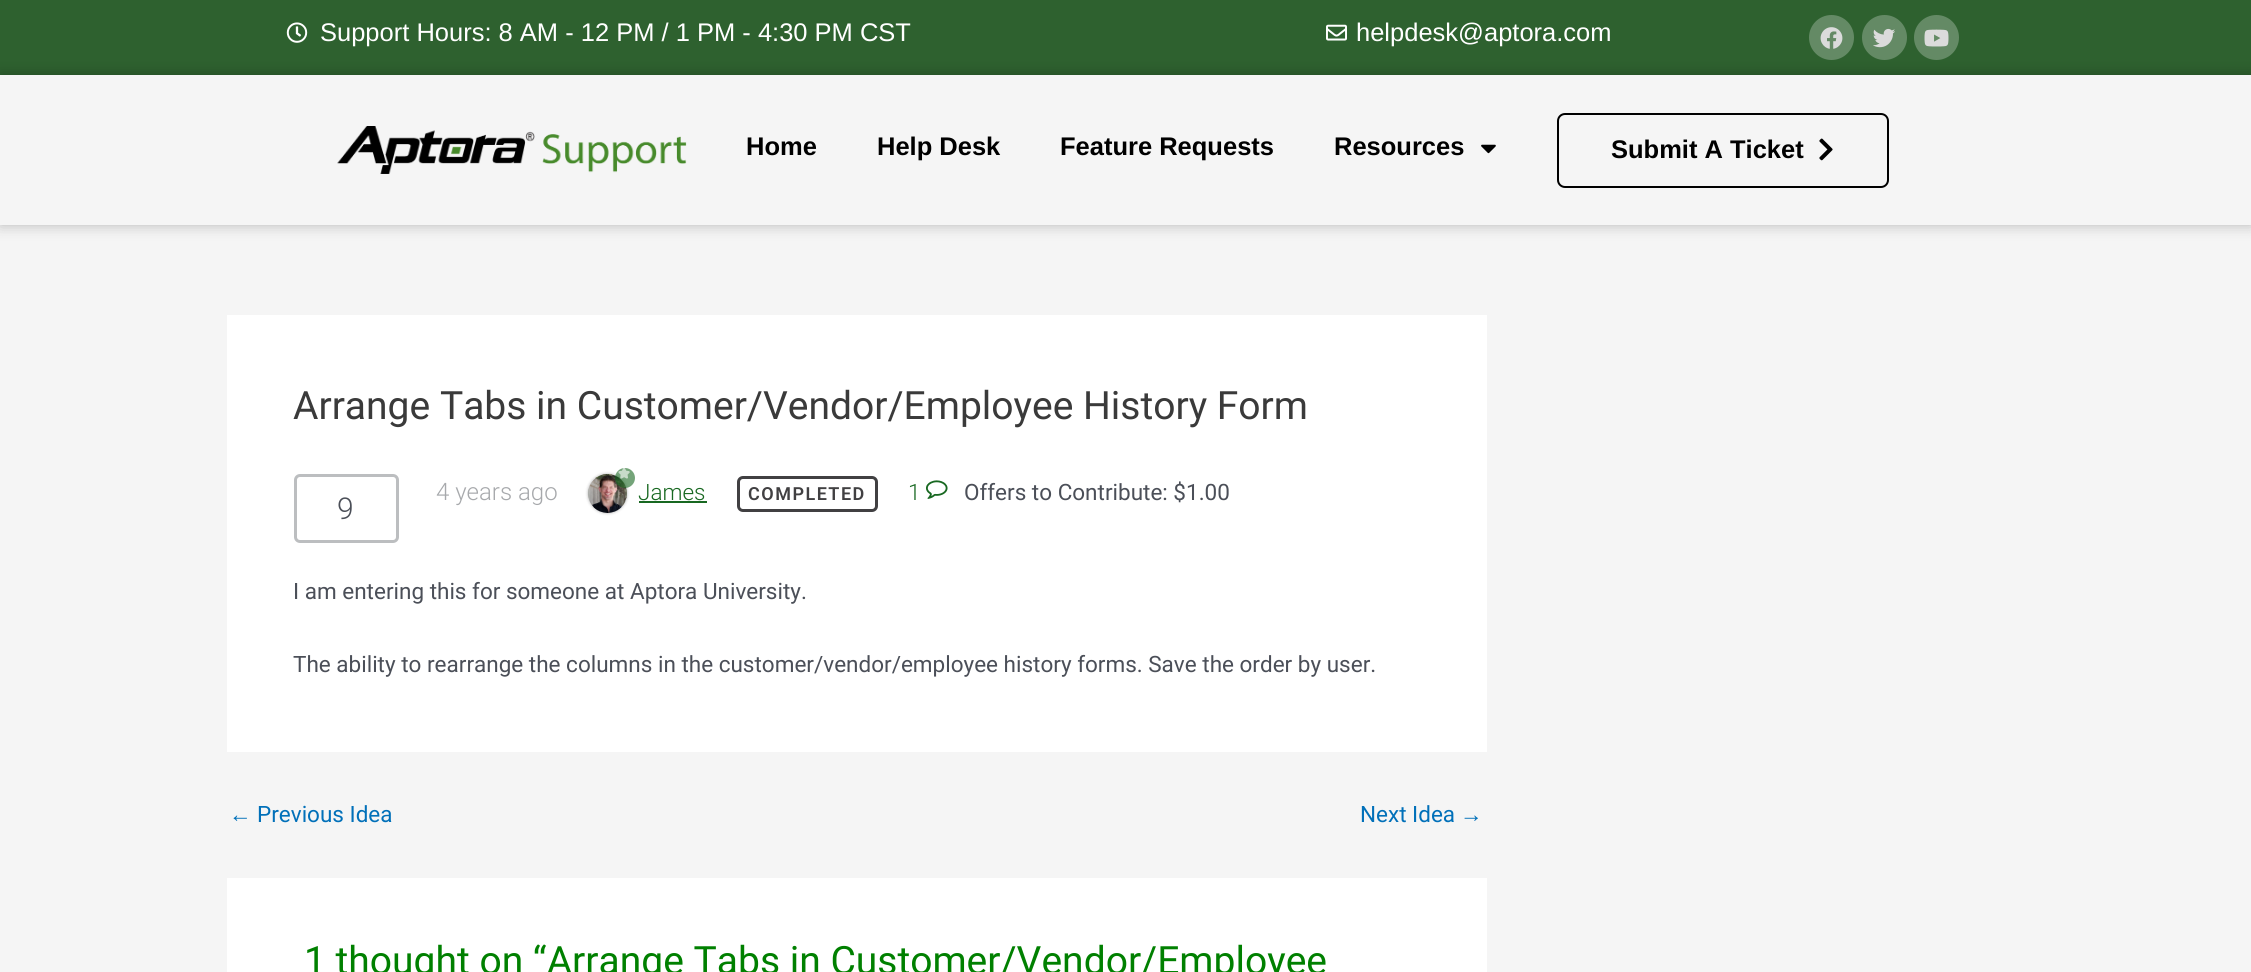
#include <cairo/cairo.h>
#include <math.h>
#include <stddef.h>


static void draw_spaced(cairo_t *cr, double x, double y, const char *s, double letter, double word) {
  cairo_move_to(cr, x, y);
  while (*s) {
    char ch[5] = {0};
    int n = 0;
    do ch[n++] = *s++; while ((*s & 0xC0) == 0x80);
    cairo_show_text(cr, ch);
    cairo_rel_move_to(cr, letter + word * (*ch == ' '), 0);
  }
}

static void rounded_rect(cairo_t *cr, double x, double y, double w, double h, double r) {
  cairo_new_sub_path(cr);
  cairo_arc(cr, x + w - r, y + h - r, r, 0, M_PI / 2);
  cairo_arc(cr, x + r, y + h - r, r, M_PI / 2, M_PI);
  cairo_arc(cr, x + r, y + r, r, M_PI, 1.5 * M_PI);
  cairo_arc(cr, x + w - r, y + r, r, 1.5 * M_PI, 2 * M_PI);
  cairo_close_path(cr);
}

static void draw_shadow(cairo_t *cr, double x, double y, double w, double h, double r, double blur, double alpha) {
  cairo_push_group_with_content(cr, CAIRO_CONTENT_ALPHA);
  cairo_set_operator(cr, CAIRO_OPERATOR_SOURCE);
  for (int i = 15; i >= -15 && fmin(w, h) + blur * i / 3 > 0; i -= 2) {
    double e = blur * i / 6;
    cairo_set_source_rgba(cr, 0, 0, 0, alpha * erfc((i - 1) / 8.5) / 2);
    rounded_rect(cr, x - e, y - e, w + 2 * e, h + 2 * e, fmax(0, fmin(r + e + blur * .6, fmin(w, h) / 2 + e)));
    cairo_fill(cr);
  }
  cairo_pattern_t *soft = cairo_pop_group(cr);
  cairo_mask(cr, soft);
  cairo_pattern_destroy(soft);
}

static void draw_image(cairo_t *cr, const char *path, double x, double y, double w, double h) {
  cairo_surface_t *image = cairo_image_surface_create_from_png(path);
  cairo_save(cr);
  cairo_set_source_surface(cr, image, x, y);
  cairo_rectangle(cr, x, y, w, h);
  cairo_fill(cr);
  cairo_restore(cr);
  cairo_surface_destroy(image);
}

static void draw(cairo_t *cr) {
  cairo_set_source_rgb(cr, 245 / 255.0, 245 / 255.0, 245 / 255.0);
  cairo_paint(cr);
  cairo_set_source_rgb(cr, 46 / 255.0, 97 / 255.0, 47 / 255.0);
  cairo_rectangle(cr, 0, 0, 2251, 75);
  cairo_fill(cr);
  draw_image(cr, "images/1.png", 286, 22, 22, 21);
  draw_image(cr, "images/2.png", 1326, 24, 21, 17);
  cairo_set_source_rgb(cr, 100 / 255.0, 138 / 255.0, 101 / 255.0);
  cairo_arc(cr, 1831.5, 37.5, 22.5, 0, 2 * M_PI);
  cairo_fill(cr);
  draw_image(cr, "images/3.png", 1820, 27, 23, 22);
  cairo_arc(cr, 1884.5, 37.5, 22.5, 0, 2 * M_PI);
  cairo_fill(cr);
  draw_image(cr, "images/4.png", 1873, 28, 22, 20);
  cairo_arc(cr, 1936.5, 37.5, 22.5, 0, 2 * M_PI);
  cairo_fill(cr);
  draw_image(cr, "images/5.png", 1924, 29, 25, 18);
  cairo_save(cr);
  cairo_set_fill_rule(cr, CAIRO_FILL_RULE_EVEN_ODD);
  cairo_new_path(cr);
  cairo_move_to(cr, 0, 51);
  cairo_line_to(cr, 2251, 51);
  cairo_line_to(cr, 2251, 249);
  cairo_line_to(cr, 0, 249);
  cairo_close_path(cr);
  cairo_move_to(cr, 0, 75);
  cairo_line_to(cr, 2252, 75);
  cairo_line_to(cr, 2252, 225);
  cairo_line_to(cr, 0, 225);
  cairo_close_path(cr);
  cairo_clip(cr);
  cairo_set_source_rgb(cr, 0, 0, 0);
  draw_shadow(cr, 0, 75, 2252, 150, 0, 7.5, 0.25);
  cairo_restore(cr);
  draw_image(cr, "images/6.png", 337, 126, 350, 48);
  draw_image(cr, "images/7.png", 1481, 144, 15, 10);
  rounded_rect(cr, 1558, 114, 330, 73, 7);
  cairo_set_source_rgb(cr, 0, 0, 0);
  cairo_stroke(cr);
  draw_image(cr, "images/8.png", 1819, 138, 14, 23);
  cairo_set_source_rgb(cr, 1, 1, 1);
  cairo_rectangle(cr, 227, 315, 1260, 437);
  cairo_fill(cr);
  cairo_set_source_rgb(cr, 0, 0, 0);
  draw_shadow(cr, 588, 474, 39, 39, 19.5, 1.5, 0.3);
  draw_image(cr, "images/9.png", 588, 474, 39, 39);
  cairo_set_source_rgba(cr, 24 / 255.0, 104 / 255.0, 33 / 255.0, 0.6);
  cairo_arc(cr, 625, 478, 10, 0, 2 * M_PI);
  cairo_fill(cr);
  draw_image(cr, "images/10.png", 618, 468, 12, 11);
  cairo_set_source_rgb(cr, 24 / 255.0, 104 / 255.0, 33 / 255.0);
  cairo_rectangle(cr, 639, 501, 68, 2);
  cairo_fill(cr);
  rounded_rect(cr, 738.5, 477.5, 138, 33, 4.5);
  cairo_set_source_rgb(cr, 65 / 255.0, 64 / 255.0, 66 / 255.0);
  cairo_set_line_width(cr, 3);
  cairo_stroke(cr);
  draw_image(cr, "images/11.png", 926, 480, 22, 19);
  rounded_rect(cr, 295.5, 475.5, 102, 66, 4.5);
  cairo_set_source_rgb(cr, 188 / 255.0, 190 / 255.0, 192 / 255.0);
  cairo_stroke(cr);
  cairo_set_source_rgb(cr, 1, 1, 1);
  cairo_rectangle(cr, 227, 878, 1260, 94);
  cairo_fill(cr);
  cairo_select_font_face(cr, "Liberation Sans", CAIRO_FONT_SLANT_NORMAL, CAIRO_FONT_WEIGHT_NORMAL);
  cairo_set_font_size(cr, 25.5);
  cairo_move_to(cr, 320, 41);
  cairo_show_text(cr, "Support Hours: 8 AM - 12 PM / 1 PM - 4:30 PM CST");
  cairo_move_to(cr, 1356, 41);
  cairo_show_text(cr, "helpdesk@aptora.com");
  cairo_select_font_face(cr, "Liberation Sans", CAIRO_FONT_SLANT_NORMAL, CAIRO_FONT_WEIGHT_BOLD);
  cairo_set_source_rgb(cr, 0, 0, 0);
  cairo_move_to(cr, 746, 155);
  cairo_show_text(cr, "Home");
  cairo_move_to(cr, 877, 155);
  cairo_show_text(cr, "Help Desk");
  cairo_move_to(cr, 1060, 155);
  cairo_show_text(cr, "Feature Requests");
  cairo_move_to(cr, 1334, 155);
  cairo_show_text(cr, "Resources");
  cairo_move_to(cr, 1611, 158);
  cairo_show_text(cr, "Submit A Ticket");
  cairo_select_font_face(cr, "Roboto", CAIRO_FONT_SLANT_NORMAL, CAIRO_FONT_WEIGHT_NORMAL);
  cairo_set_font_size(cr, 39);
  cairo_set_source_rgb(cr, 58 / 255.0, 58 / 255.0, 58 / 255.0);
  cairo_move_to(cr, 293, 419);
  cairo_show_text(cr, "Arrange Tabs in Customer/Vendor/Employee History Form");
  cairo_select_font_face(cr, "Roboto Light", CAIRO_FONT_SLANT_NORMAL, CAIRO_FONT_WEIGHT_NORMAL);
  cairo_set_font_size(cr, 24);
  cairo_set_source_rgb(cr, 167 / 255.0, 169 / 255.0, 172 / 255.0);
  cairo_move_to(cr, 436, 500);
  cairo_show_text(cr, "4 years ago");
  cairo_set_font_size(cr, 22.5);
  cairo_set_source_rgb(cr, 24 / 255.0, 104 / 255.0, 33 / 255.0);
  cairo_move_to(cr, 638, 500);
  cairo_show_text(cr, "James");
  cairo_select_font_face(cr, "Roboto SemiBold", CAIRO_FONT_SLANT_NORMAL, CAIRO_FONT_WEIGHT_NORMAL);
  cairo_set_font_size(cr, 18);
  cairo_set_source_rgb(cr, 65 / 255.0, 64 / 255.0, 66 / 255.0);
  draw_spaced(cr, 748, 500, "COMPLETED", 1.5, 0);
  cairo_select_font_face(cr, "Roboto Light", CAIRO_FONT_SLANT_NORMAL, CAIRO_FONT_WEIGHT_NORMAL);
  cairo_set_font_size(cr, 22.5);
  cairo_set_source_rgb(cr, 24 / 255.0, 104 / 255.0, 33 / 255.0);
  cairo_move_to(cr, 908, 500);
  cairo_show_text(cr, "1");
  cairo_select_font_face(cr, "Roboto", CAIRO_FONT_SLANT_NORMAL, CAIRO_FONT_WEIGHT_NORMAL);
  cairo_set_source_rgb(cr, 75 / 255.0, 79 / 255.0, 88 / 255.0);
  cairo_move_to(cr, 964, 500);
  cairo_show_text(cr, "Offers to Contribute: $1.00");
  cairo_select_font_face(cr, "Roboto Light", CAIRO_FONT_SLANT_NORMAL, CAIRO_FONT_WEIGHT_NORMAL);
  cairo_set_font_size(cr, 30);
  cairo_move_to(cr, 337, 519);
  cairo_show_text(cr, "9");
  cairo_select_font_face(cr, "Roboto", CAIRO_FONT_SLANT_NORMAL, CAIRO_FONT_WEIGHT_NORMAL);
  cairo_set_font_size(cr, 22.5);
  cairo_move_to(cr, 293, 599);
  cairo_show_text(cr, "I am entering this for someone at Aptora University.");
  cairo_move_to(cr, 293, 672);
  cairo_show_text(cr, "The ability to rearrange the columns in the customer/vendor/employee history forms. Save the order by user.");
  cairo_select_font_face(cr, "Liberation Sans", CAIRO_FONT_SLANT_NORMAL, CAIRO_FONT_WEIGHT_NORMAL);
  cairo_set_source_rgb(cr, 1 / 255.0, 112 / 255.0, 185 / 255.0);
  cairo_move_to(cr, 229, 822);
  cairo_show_text(cr, "←");
  cairo_select_font_face(cr, "Roboto", CAIRO_FONT_SLANT_NORMAL, CAIRO_FONT_WEIGHT_NORMAL);
  cairo_move_to(cr, 257, 822);
  cairo_show_text(cr, "Previous Idea");
  cairo_move_to(cr, 1360, 822);
  cairo_show_text(cr, "Next Idea");
  cairo_select_font_face(cr, "Liberation Sans", CAIRO_FONT_SLANT_NORMAL, CAIRO_FONT_WEIGHT_NORMAL);
  cairo_move_to(cr, 1460, 822);
  cairo_show_text(cr, "→");
  cairo_select_font_face(cr, "Roboto", CAIRO_FONT_SLANT_NORMAL, CAIRO_FONT_WEIGHT_NORMAL);
  cairo_set_font_size(cr, 39);
  cairo_set_source_rgb(cr, 0, 128 / 255.0, 0);
  cairo_move_to(cr, 304, 974);
  cairo_show_text(cr, "1 thought on “Arrange Tabs in Customer/Vendor/Employee");
}

int main(void) {
  cairo_surface_t *surface = cairo_image_surface_create(CAIRO_FORMAT_RGB24, 2251, 972);
  cairo_t *cr = cairo_create(surface);
  cairo_font_options_t *options = cairo_font_options_create();
  cairo_font_options_set_hint_metrics(options, CAIRO_HINT_METRICS_OFF);
  cairo_font_options_set_hint_style(options, CAIRO_HINT_STYLE_NONE);
  cairo_set_font_options(cr, options);
  cairo_set_miter_limit(cr, 4);
  draw(cr);
  cairo_surface_write_to_png(surface, "out.png");
  cairo_font_options_destroy(options);
  cairo_destroy(cr);
  cairo_surface_destroy(surface);
  return 0;
}
